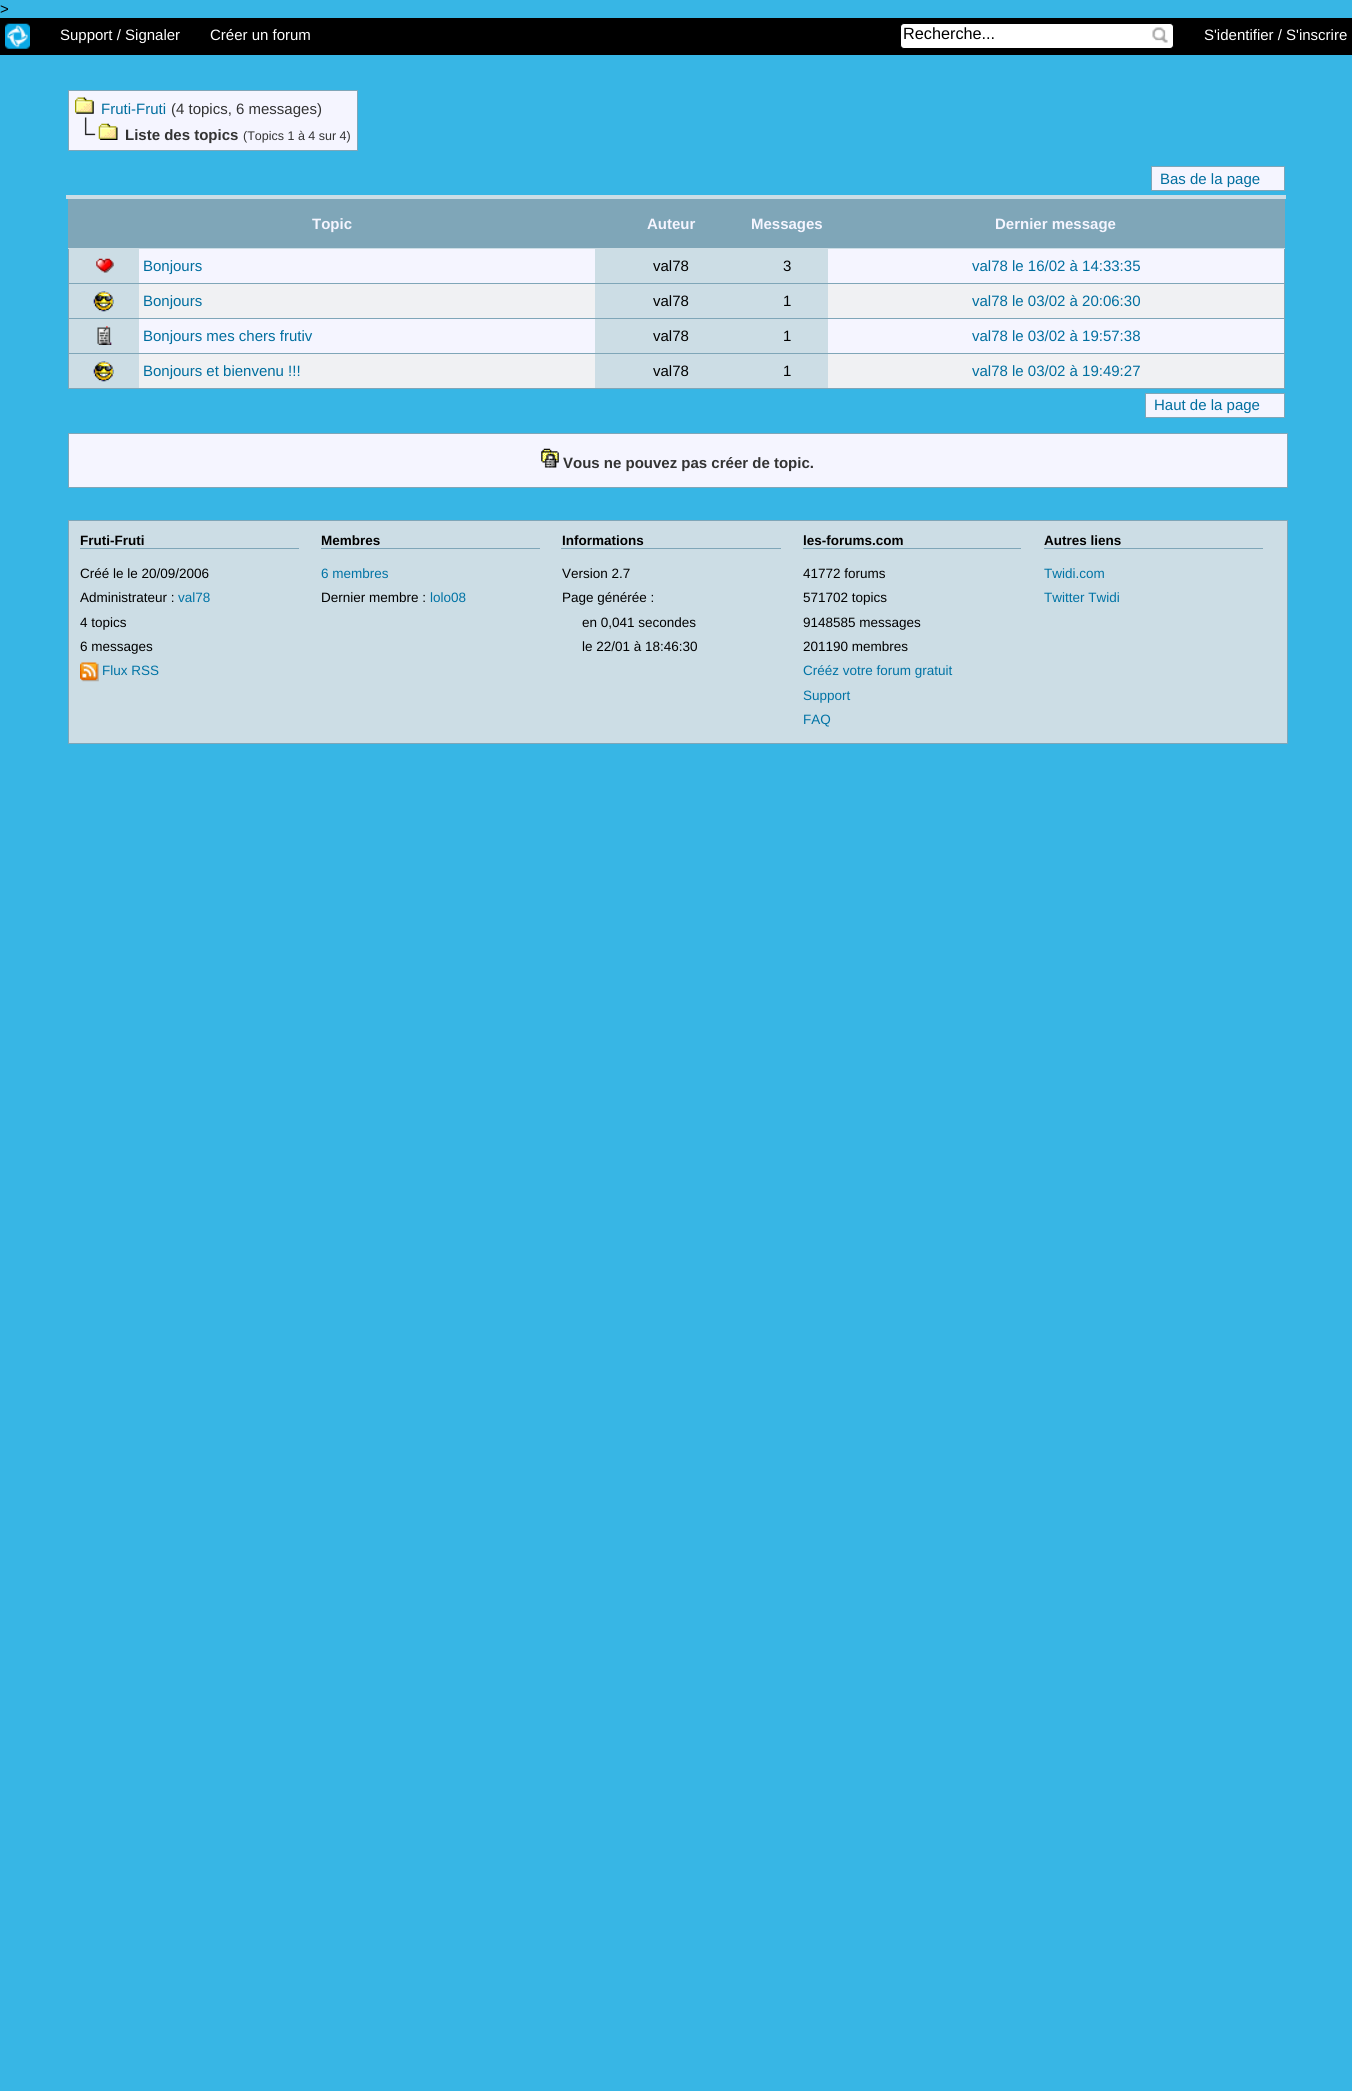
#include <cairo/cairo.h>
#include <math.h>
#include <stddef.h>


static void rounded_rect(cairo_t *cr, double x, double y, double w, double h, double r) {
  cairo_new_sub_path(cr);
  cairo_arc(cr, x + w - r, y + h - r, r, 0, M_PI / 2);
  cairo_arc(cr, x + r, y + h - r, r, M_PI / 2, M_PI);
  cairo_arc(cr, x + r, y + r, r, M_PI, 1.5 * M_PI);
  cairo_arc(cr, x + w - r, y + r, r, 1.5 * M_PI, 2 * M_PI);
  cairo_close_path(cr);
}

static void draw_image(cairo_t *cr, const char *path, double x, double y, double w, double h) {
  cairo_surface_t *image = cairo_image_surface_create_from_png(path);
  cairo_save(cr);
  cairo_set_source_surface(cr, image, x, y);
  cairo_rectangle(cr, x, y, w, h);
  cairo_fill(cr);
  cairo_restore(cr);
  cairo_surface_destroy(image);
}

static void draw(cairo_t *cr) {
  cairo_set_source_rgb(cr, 55 / 255.0, 182 / 255.0, 229 / 255.0);
  cairo_paint(cr);
  cairo_set_source_rgb(cr, 0, 0, 0);
  cairo_rectangle(cr, 0, 18, 1352, 37);
  cairo_fill(cr);
  draw_image(cr, "images/1.png", 5, 23, 25, 26);
  cairo_set_source_rgb(cr, 1, 1, 1);
  rounded_rect(cr, 900.5, 23.5, 273, 25, 3.5);
  cairo_fill_preserve(cr);
  cairo_set_source_rgb(cr, 0, 0, 0);
  cairo_set_line_width(cr, 1);
  cairo_stroke(cr);
  draw_image(cr, "images/2.png", 1152, 27, 16, 16);
  cairo_set_source_rgb(cr, 245 / 255.0, 245 / 255.0, 1);
  cairo_rectangle(cr, 68.5, 90.5, 289, 60);
  cairo_fill_preserve(cr);
  cairo_set_source_rgb(cr, 127 / 255.0, 166 / 255.0, 184 / 255.0);
  cairo_stroke(cr);
  draw_image(cr, "images/3.png", 75, 97, 19, 17);
  draw_image(cr, "images/4.png", 84, 117, 34, 23);
  cairo_set_source_rgb(cr, 245 / 255.0, 245 / 255.0, 1);
  cairo_rectangle(cr, 1151.5, 166.5, 133, 24);
  cairo_fill_preserve(cr);
  cairo_set_source_rgb(cr, 127 / 255.0, 166 / 255.0, 184 / 255.0);
  cairo_stroke(cr);
  cairo_set_source_rgb(cr, 245 / 255.0, 245 / 255.0, 1);
  cairo_rectangle(cr, 139, 249, 1145, 104);
  cairo_fill(cr);
  cairo_set_source_rgb(cr, 127 / 255.0, 166 / 255.0, 184 / 255.0);
  cairo_rectangle(cr, 1284, 195, 1, 194);
  cairo_fill(cr);
  cairo_rectangle(cr, 68, 388, 1217, 1);
  cairo_fill(cr);
  cairo_rectangle(cr, 68, 195, 1, 194);
  cairo_fill(cr);
  cairo_rectangle(cr, 69, 199, 1215, 49);
  cairo_fill(cr);
  cairo_set_source_rgb(cr, 204 / 255.0, 221 / 255.0, 229 / 255.0);
  cairo_rectangle(cr, 68, 248, 1217, 1);
  cairo_fill(cr);
  cairo_rectangle(cr, 66, 195, 1220, 4);
  cairo_fill(cr);
  cairo_rectangle(cr, 69, 249, 70, 34);
  cairo_fill(cr);
  draw_image(cr, "images/5.png", 96, 258, 18, 15);
  cairo_rectangle(cr, 595, 249, 233, 34);
  cairo_fill(cr);
  cairo_rectangle(cr, 69, 284, 70, 34);
  cairo_fill(cr);
  draw_image(cr, "images/6.png", 93, 291, 21, 21);
  cairo_set_source_rgb(cr, 240 / 255.0, 241 / 255.0, 243 / 255.0);
  cairo_rectangle(cr, 139, 284, 456, 34);
  cairo_fill(cr);
  cairo_set_source_rgb(cr, 204 / 255.0, 221 / 255.0, 229 / 255.0);
  cairo_rectangle(cr, 595, 284, 233, 34);
  cairo_fill(cr);
  cairo_set_source_rgb(cr, 240 / 255.0, 241 / 255.0, 243 / 255.0);
  cairo_rectangle(cr, 828, 284, 456, 34);
  cairo_fill(cr);
  cairo_set_source_rgb(cr, 127 / 255.0, 166 / 255.0, 184 / 255.0);
  cairo_rectangle(cr, 68, 283, 1217, 1);
  cairo_fill(cr);
  cairo_set_source_rgb(cr, 204 / 255.0, 221 / 255.0, 229 / 255.0);
  cairo_rectangle(cr, 69, 319, 70, 34);
  cairo_fill(cr);
  draw_image(cr, "images/7.png", 97, 326, 15, 19);
  cairo_rectangle(cr, 595, 319, 233, 34);
  cairo_fill(cr);
  cairo_set_source_rgb(cr, 127 / 255.0, 166 / 255.0, 184 / 255.0);
  cairo_rectangle(cr, 68, 318, 1217, 1);
  cairo_fill(cr);
  cairo_set_source_rgb(cr, 204 / 255.0, 221 / 255.0, 229 / 255.0);
  cairo_rectangle(cr, 69, 354, 70, 34);
  cairo_fill(cr);
  draw_image(cr, "images/8.png", 93, 361, 21, 21);
  cairo_set_source_rgb(cr, 240 / 255.0, 241 / 255.0, 243 / 255.0);
  cairo_rectangle(cr, 139, 354, 456, 34);
  cairo_fill(cr);
  cairo_set_source_rgb(cr, 204 / 255.0, 221 / 255.0, 229 / 255.0);
  cairo_rectangle(cr, 595, 354, 233, 34);
  cairo_fill(cr);
  cairo_set_source_rgb(cr, 240 / 255.0, 241 / 255.0, 243 / 255.0);
  cairo_rectangle(cr, 828, 354, 456, 34);
  cairo_fill(cr);
  cairo_set_source_rgb(cr, 127 / 255.0, 166 / 255.0, 184 / 255.0);
  cairo_rectangle(cr, 68, 353, 1217, 1);
  cairo_fill(cr);
  cairo_set_source_rgb(cr, 245 / 255.0, 245 / 255.0, 1);
  cairo_rectangle(cr, 1145.5, 393.5, 139, 24);
  cairo_fill_preserve(cr);
  cairo_set_source_rgb(cr, 127 / 255.0, 166 / 255.0, 184 / 255.0);
  cairo_stroke(cr);
  cairo_set_source_rgb(cr, 245 / 255.0, 245 / 255.0, 1);
  cairo_rectangle(cr, 68.5, 433.5, 1219, 54);
  cairo_fill_preserve(cr);
  cairo_set_source_rgb(cr, 127 / 255.0, 166 / 255.0, 184 / 255.0);
  cairo_stroke(cr);
  draw_image(cr, "images/9.png", 541, 448, 18, 20);
  cairo_set_source_rgb(cr, 204 / 255.0, 221 / 255.0, 229 / 255.0);
  cairo_rectangle(cr, 68.5, 520.5, 1219, 223);
  cairo_fill_preserve(cr);
  cairo_set_source_rgb(cr, 127 / 255.0, 166 / 255.0, 184 / 255.0);
  cairo_stroke(cr);
  cairo_rectangle(cr, 80, 548, 219, 1);
  cairo_fill(cr);
  draw_image(cr, "images/10.png", 80, 662, 19, 20);
  cairo_rectangle(cr, 321, 548, 219, 1);
  cairo_fill(cr);
  cairo_rectangle(cr, 561, 548, 220, 1);
  cairo_fill(cr);
  cairo_rectangle(cr, 803, 548, 218, 1);
  cairo_fill(cr);
  cairo_rectangle(cr, 1044, 548, 219, 1);
  cairo_fill(cr);
  cairo_select_font_face(cr, "Liberation Sans", CAIRO_FONT_SLANT_NORMAL, CAIRO_FONT_WEIGHT_NORMAL);
  cairo_set_font_size(cr, 15);
  cairo_set_source_rgb(cr, 0, 0, 0);
  cairo_move_to(cr, 0, 14);
  cairo_show_text(cr, ">");
  cairo_set_source_rgb(cr, 1, 1, 1);
  cairo_move_to(cr, 60, 40);
  cairo_show_text(cr, "Support / Signaler");
  cairo_move_to(cr, 210, 40);
  cairo_show_text(cr, "Créer un forum");
  cairo_set_font_size(cr, 16.25);
  cairo_set_source_rgb(cr, 0, 0, 0);
  cairo_move_to(cr, 903, 39);
  cairo_show_text(cr, "Recherche...");
  cairo_set_font_size(cr, 15);
  cairo_set_source_rgb(cr, 1, 1, 1);
  cairo_move_to(cr, 1204, 40);
  cairo_show_text(cr, "S'identifier / S'inscrire");
  cairo_set_source_rgb(cr, 0, 110 / 255.0, 159 / 255.0);
  cairo_move_to(cr, 101, 114);
  cairo_show_text(cr, "Fruti-Fruti");
  cairo_set_source_rgb(cr, 51 / 255.0, 51 / 255.0, 51 / 255.0);
  cairo_move_to(cr, 171, 114);
  cairo_show_text(cr, "(4 topics, 6 messages)");
  cairo_select_font_face(cr, "Liberation Sans", CAIRO_FONT_SLANT_NORMAL, CAIRO_FONT_WEIGHT_BOLD);
  cairo_move_to(cr, 125, 140);
  cairo_show_text(cr, "Liste des topics");
  cairo_select_font_face(cr, "Liberation Sans", CAIRO_FONT_SLANT_NORMAL, CAIRO_FONT_WEIGHT_NORMAL);
  cairo_set_font_size(cr, 12.5);
  cairo_move_to(cr, 243, 140);
  cairo_show_text(cr, "(Topics 1 à 4 sur 4)");
  cairo_set_font_size(cr, 15);
  cairo_set_source_rgb(cr, 0, 110 / 255.0, 159 / 255.0);
  cairo_move_to(cr, 1160, 184);
  cairo_show_text(cr, "Bas de la page");
  cairo_select_font_face(cr, "Liberation Sans", CAIRO_FONT_SLANT_NORMAL, CAIRO_FONT_WEIGHT_BOLD);
  cairo_set_source_rgb(cr, 245 / 255.0, 245 / 255.0, 1);
  cairo_move_to(cr, 312, 229);
  cairo_show_text(cr, "Topic");
  cairo_move_to(cr, 647, 229);
  cairo_show_text(cr, "Auteur");
  cairo_move_to(cr, 751, 229);
  cairo_show_text(cr, "Messages");
  cairo_move_to(cr, 995, 229);
  cairo_show_text(cr, "Dernier message");
  cairo_select_font_face(cr, "Liberation Sans", CAIRO_FONT_SLANT_NORMAL, CAIRO_FONT_WEIGHT_NORMAL);
  cairo_set_source_rgb(cr, 0, 110 / 255.0, 159 / 255.0);
  cairo_move_to(cr, 143, 271);
  cairo_show_text(cr, "Bonjours");
  cairo_set_source_rgb(cr, 0, 0, 0);
  cairo_move_to(cr, 653, 271);
  cairo_show_text(cr, "val78");
  cairo_move_to(cr, 783, 271);
  cairo_show_text(cr, "3");
  cairo_set_source_rgb(cr, 0, 110 / 255.0, 159 / 255.0);
  cairo_move_to(cr, 972, 271);
  cairo_show_text(cr, "val78 le 16/02 à 14:33:35");
  cairo_move_to(cr, 143, 306);
  cairo_show_text(cr, "Bonjours");
  cairo_set_source_rgb(cr, 0, 0, 0);
  cairo_move_to(cr, 653, 306);
  cairo_show_text(cr, "val78");
  cairo_move_to(cr, 783, 306);
  cairo_show_text(cr, "1");
  cairo_set_source_rgb(cr, 0, 110 / 255.0, 159 / 255.0);
  cairo_move_to(cr, 972, 306);
  cairo_show_text(cr, "val78 le 03/02 à 20:06:30");
  cairo_move_to(cr, 143, 341);
  cairo_show_text(cr, "Bonjours mes chers frutiv");
  cairo_set_source_rgb(cr, 0, 0, 0);
  cairo_move_to(cr, 653, 341);
  cairo_show_text(cr, "val78");
  cairo_move_to(cr, 783, 341);
  cairo_show_text(cr, "1");
  cairo_set_source_rgb(cr, 0, 110 / 255.0, 159 / 255.0);
  cairo_move_to(cr, 972, 341);
  cairo_show_text(cr, "val78 le 03/02 à 19:57:38");
  cairo_move_to(cr, 143, 376);
  cairo_show_text(cr, "Bonjours et bienvenu !!!");
  cairo_set_source_rgb(cr, 0, 0, 0);
  cairo_move_to(cr, 653, 376);
  cairo_show_text(cr, "val78");
  cairo_move_to(cr, 783, 376);
  cairo_show_text(cr, "1");
  cairo_set_source_rgb(cr, 0, 110 / 255.0, 159 / 255.0);
  cairo_move_to(cr, 972, 376);
  cairo_show_text(cr, "val78 le 03/02 à 19:49:27");
  cairo_move_to(cr, 1154, 410);
  cairo_show_text(cr, "Haut de la page");
  cairo_select_font_face(cr, "Liberation Sans", CAIRO_FONT_SLANT_NORMAL, CAIRO_FONT_WEIGHT_BOLD);
  cairo_set_source_rgb(cr, 51 / 255.0, 51 / 255.0, 51 / 255.0);
  cairo_move_to(cr, 563, 468);
  cairo_show_text(cr, "Vous ne pouvez pas créer de topic.");
  cairo_set_font_size(cr, 13.5);
  cairo_set_source_rgb(cr, 0, 0, 0);
  cairo_move_to(cr, 80, 545);
  cairo_show_text(cr, "Fruti-Fruti");
  cairo_select_font_face(cr, "Liberation Sans", CAIRO_FONT_SLANT_NORMAL, CAIRO_FONT_WEIGHT_NORMAL);
  cairo_move_to(cr, 80, 578);
  cairo_show_text(cr, "Créé le le 20/09/2006");
  cairo_move_to(cr, 80, 602);
  cairo_show_text(cr, "Administrateur :");
  cairo_set_source_rgb(cr, 0, 115 / 255.0, 165 / 255.0);
  cairo_move_to(cr, 178, 602);
  cairo_show_text(cr, "val78");
  cairo_set_source_rgb(cr, 0, 0, 0);
  cairo_move_to(cr, 80, 627);
  cairo_show_text(cr, "4 topics");
  cairo_move_to(cr, 80, 651);
  cairo_show_text(cr, "6 messages");
  cairo_set_source_rgb(cr, 0, 115 / 255.0, 165 / 255.0);
  cairo_move_to(cr, 102, 675);
  cairo_show_text(cr, "Flux RSS");
  cairo_select_font_face(cr, "Liberation Sans", CAIRO_FONT_SLANT_NORMAL, CAIRO_FONT_WEIGHT_BOLD);
  cairo_set_source_rgb(cr, 0, 0, 0);
  cairo_move_to(cr, 321, 545);
  cairo_show_text(cr, "Membres");
  cairo_select_font_face(cr, "Liberation Sans", CAIRO_FONT_SLANT_NORMAL, CAIRO_FONT_WEIGHT_NORMAL);
  cairo_set_source_rgb(cr, 0, 115 / 255.0, 165 / 255.0);
  cairo_move_to(cr, 321, 578);
  cairo_show_text(cr, "6 membres");
  cairo_set_source_rgb(cr, 0, 0, 0);
  cairo_move_to(cr, 321, 602);
  cairo_show_text(cr, "Dernier membre :");
  cairo_set_source_rgb(cr, 0, 115 / 255.0, 165 / 255.0);
  cairo_move_to(cr, 430, 602);
  cairo_show_text(cr, "lolo08");
  cairo_select_font_face(cr, "Liberation Sans", CAIRO_FONT_SLANT_NORMAL, CAIRO_FONT_WEIGHT_BOLD);
  cairo_set_source_rgb(cr, 0, 0, 0);
  cairo_move_to(cr, 562, 545);
  cairo_show_text(cr, "Informations");
  cairo_select_font_face(cr, "Liberation Sans", CAIRO_FONT_SLANT_NORMAL, CAIRO_FONT_WEIGHT_NORMAL);
  cairo_move_to(cr, 562, 578);
  cairo_show_text(cr, "Version 2.7");
  cairo_move_to(cr, 562, 602);
  cairo_show_text(cr, "Page générée :");
  cairo_move_to(cr, 582, 627);
  cairo_show_text(cr, "en 0,041 secondes");
  cairo_move_to(cr, 582, 651);
  cairo_show_text(cr, "le 22/01 à 18:46:30");
  cairo_select_font_face(cr, "Liberation Sans", CAIRO_FONT_SLANT_NORMAL, CAIRO_FONT_WEIGHT_BOLD);
  cairo_move_to(cr, 803, 545);
  cairo_show_text(cr, "les-forums.com");
  cairo_select_font_face(cr, "Liberation Sans", CAIRO_FONT_SLANT_NORMAL, CAIRO_FONT_WEIGHT_NORMAL);
  cairo_move_to(cr, 803, 578);
  cairo_show_text(cr, "41772 forums");
  cairo_move_to(cr, 803, 602);
  cairo_show_text(cr, "571702 topics");
  cairo_move_to(cr, 803, 627);
  cairo_show_text(cr, "9148585 messages");
  cairo_move_to(cr, 803, 651);
  cairo_show_text(cr, "201190 membres");
  cairo_set_source_rgb(cr, 0, 115 / 255.0, 165 / 255.0);
  cairo_move_to(cr, 803, 675);
  cairo_show_text(cr, "Crééz votre forum gratuit");
  cairo_move_to(cr, 803, 700);
  cairo_show_text(cr, "Support");
  cairo_move_to(cr, 803, 724);
  cairo_show_text(cr, "FAQ");
  cairo_select_font_face(cr, "Liberation Sans", CAIRO_FONT_SLANT_NORMAL, CAIRO_FONT_WEIGHT_BOLD);
  cairo_set_source_rgb(cr, 0, 0, 0);
  cairo_move_to(cr, 1044, 545);
  cairo_show_text(cr, "Autres liens");
  cairo_select_font_face(cr, "Liberation Sans", CAIRO_FONT_SLANT_NORMAL, CAIRO_FONT_WEIGHT_NORMAL);
  cairo_set_source_rgb(cr, 0, 115 / 255.0, 165 / 255.0);
  cairo_move_to(cr, 1044, 578);
  cairo_show_text(cr, "Twidi.com");
  cairo_move_to(cr, 1044, 602);
  cairo_show_text(cr, "Twitter Twidi");
}

int main(void) {
  cairo_surface_t *surface = cairo_image_surface_create(CAIRO_FORMAT_RGB24, 1352, 2091);
  cairo_t *cr = cairo_create(surface);
  cairo_font_options_t *options = cairo_font_options_create();
  cairo_font_options_set_hint_metrics(options, CAIRO_HINT_METRICS_OFF);
  cairo_font_options_set_hint_style(options, CAIRO_HINT_STYLE_NONE);
  cairo_set_font_options(cr, options);
  cairo_set_miter_limit(cr, 4);
  draw(cr);
  cairo_surface_write_to_png(surface, "out.png");
  cairo_font_options_destroy(options);
  cairo_destroy(cr);
  cairo_surface_destroy(surface);
  return 0;
}
